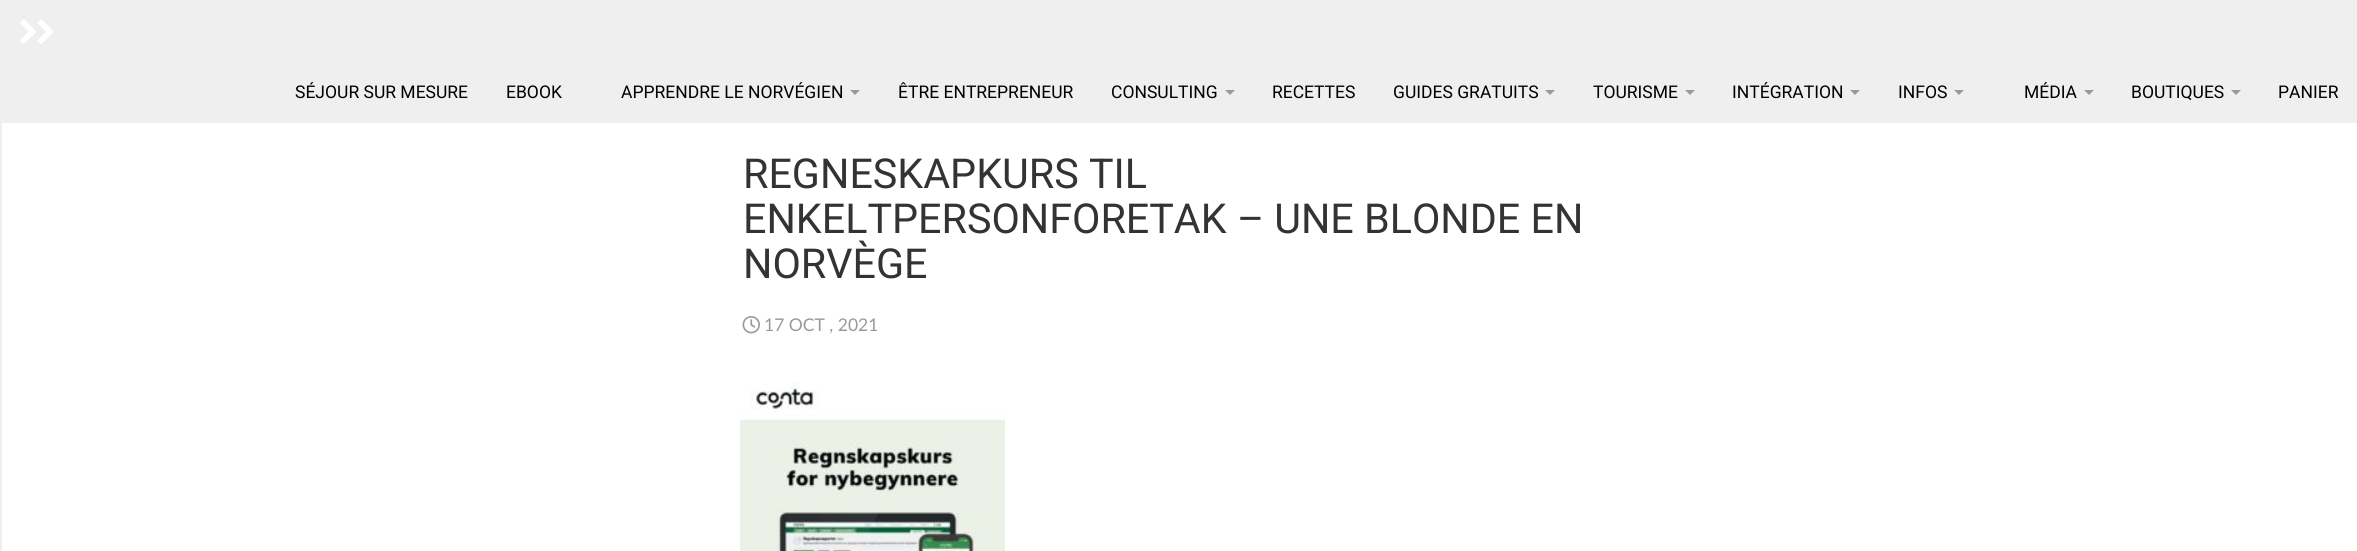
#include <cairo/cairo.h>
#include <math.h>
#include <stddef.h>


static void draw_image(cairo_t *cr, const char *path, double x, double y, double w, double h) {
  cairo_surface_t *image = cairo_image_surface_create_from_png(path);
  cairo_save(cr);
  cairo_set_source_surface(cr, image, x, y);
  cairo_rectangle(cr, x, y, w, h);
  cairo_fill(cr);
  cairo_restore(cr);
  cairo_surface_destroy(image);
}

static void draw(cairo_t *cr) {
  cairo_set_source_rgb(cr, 1, 1, 1);
  cairo_paint(cr);
  cairo_set_source_rgb(cr, 238 / 255.0, 238 / 255.0, 238 / 255.0);
  cairo_rectangle(cr, 0, 123, 2, 428);
  cairo_fill(cr);
  cairo_set_source_rgb(cr, 239 / 255.0, 239 / 255.0, 239 / 255.0);
  cairo_rectangle(cr, 0, 0, 2357, 123);
  cairo_fill(cr);
  draw_image(cr, "images/1.png", 20, 19, 16, 25);
  draw_image(cr, "images/2.png", 37, 19, 17, 25);
  cairo_set_source_rgb(cr, 153 / 255.0, 153 / 255.0, 153 / 255.0);
  cairo_new_path(cr);
  cairo_move_to(cr, 850, 90);
  cairo_line_to(cr, 860, 90);
  cairo_line_to(cr, 855, 95);
  cairo_close_path(cr);
  cairo_fill(cr);
  cairo_new_path(cr);
  cairo_move_to(cr, 1225, 90);
  cairo_line_to(cr, 1235, 90);
  cairo_line_to(cr, 1230, 95);
  cairo_close_path(cr);
  cairo_fill(cr);
  cairo_new_path(cr);
  cairo_move_to(cr, 1545, 90);
  cairo_line_to(cr, 1555, 90);
  cairo_line_to(cr, 1550, 95);
  cairo_close_path(cr);
  cairo_fill(cr);
  cairo_new_path(cr);
  cairo_move_to(cr, 1685, 90);
  cairo_line_to(cr, 1695, 90);
  cairo_line_to(cr, 1690, 95);
  cairo_close_path(cr);
  cairo_fill(cr);
  cairo_new_path(cr);
  cairo_move_to(cr, 1850, 90);
  cairo_line_to(cr, 1860, 90);
  cairo_line_to(cr, 1855, 95);
  cairo_close_path(cr);
  cairo_fill(cr);
  cairo_new_path(cr);
  cairo_move_to(cr, 1954, 90);
  cairo_line_to(cr, 1964, 90);
  cairo_line_to(cr, 1959, 95);
  cairo_close_path(cr);
  cairo_fill(cr);
  cairo_new_path(cr);
  cairo_move_to(cr, 2084, 90);
  cairo_line_to(cr, 2094, 90);
  cairo_line_to(cr, 2089, 95);
  cairo_close_path(cr);
  cairo_fill(cr);
  cairo_new_path(cr);
  cairo_move_to(cr, 2231, 90);
  cairo_line_to(cr, 2241, 90);
  cairo_line_to(cr, 2236, 95);
  cairo_close_path(cr);
  cairo_fill(cr);
  draw_image(cr, "images/3.png", 742, 316, 18, 18);
  draw_image(cr, "images/4.png", 740, 382, 265, 169);
  cairo_select_font_face(cr, "Roboto", CAIRO_FONT_SLANT_NORMAL, CAIRO_FONT_WEIGHT_NORMAL);
  cairo_set_font_size(cr, 17.5);
  cairo_set_source_rgb(cr, 0, 0, 0);
  cairo_move_to(cr, 295, 98);
  cairo_show_text(cr, "SÉJOUR SUR MESURE");
  cairo_move_to(cr, 506, 98);
  cairo_show_text(cr, "EBOOK");
  cairo_move_to(cr, 621, 98);
  cairo_show_text(cr, "APPRENDRE LE NORVÉGIEN");
  cairo_move_to(cr, 898, 98);
  cairo_show_text(cr, "ÊTRE ENTREPRENEUR");
  cairo_move_to(cr, 1111, 98);
  cairo_show_text(cr, "CONSULTING");
  cairo_move_to(cr, 1272, 98);
  cairo_show_text(cr, "RECETTES");
  cairo_move_to(cr, 1393, 98);
  cairo_show_text(cr, "GUIDES GRATUITS");
  cairo_move_to(cr, 1593, 98);
  cairo_show_text(cr, "TOURISME");
  cairo_move_to(cr, 1732, 98);
  cairo_show_text(cr, "INTÉGRATION");
  cairo_move_to(cr, 1898, 98);
  cairo_show_text(cr, "INFOS");
  cairo_move_to(cr, 2024, 98);
  cairo_show_text(cr, "MÉDIA");
  cairo_move_to(cr, 2131, 98);
  cairo_show_text(cr, "BOUTIQUES");
  cairo_move_to(cr, 2278, 98);
  cairo_show_text(cr, "PANIER");
  cairo_set_font_size(cr, 41.25);
  cairo_set_source_rgb(cr, 51 / 255.0, 51 / 255.0, 51 / 255.0);
  cairo_move_to(cr, 743, 188);
  cairo_show_text(cr, "REGNESKAPKURS TIL");
  cairo_move_to(cr, 743, 233);
  cairo_show_text(cr, "ENKELTPERSONFORETAK – UNE BLONDE EN");
  cairo_move_to(cr, 743, 278);
  cairo_show_text(cr, "NORVÈGE");
  cairo_select_font_face(cr, "Lato", CAIRO_FONT_SLANT_NORMAL, CAIRO_FONT_WEIGHT_NORMAL);
  cairo_set_font_size(cr, 17.5);
  cairo_set_source_rgb(cr, 153 / 255.0, 153 / 255.0, 153 / 255.0);
  cairo_move_to(cr, 764, 331);
  cairo_show_text(cr, "17 OCT , 2021");
}

int main(void) {
  cairo_surface_t *surface = cairo_image_surface_create(CAIRO_FORMAT_RGB24, 2357, 551);
  cairo_t *cr = cairo_create(surface);
  cairo_font_options_t *options = cairo_font_options_create();
  cairo_font_options_set_hint_metrics(options, CAIRO_HINT_METRICS_OFF);
  cairo_font_options_set_hint_style(options, CAIRO_HINT_STYLE_NONE);
  cairo_set_font_options(cr, options);
  cairo_set_miter_limit(cr, 4);
  draw(cr);
  cairo_surface_write_to_png(surface, "out.png");
  cairo_font_options_destroy(options);
  cairo_destroy(cr);
  cairo_surface_destroy(surface);
  return 0;
}
